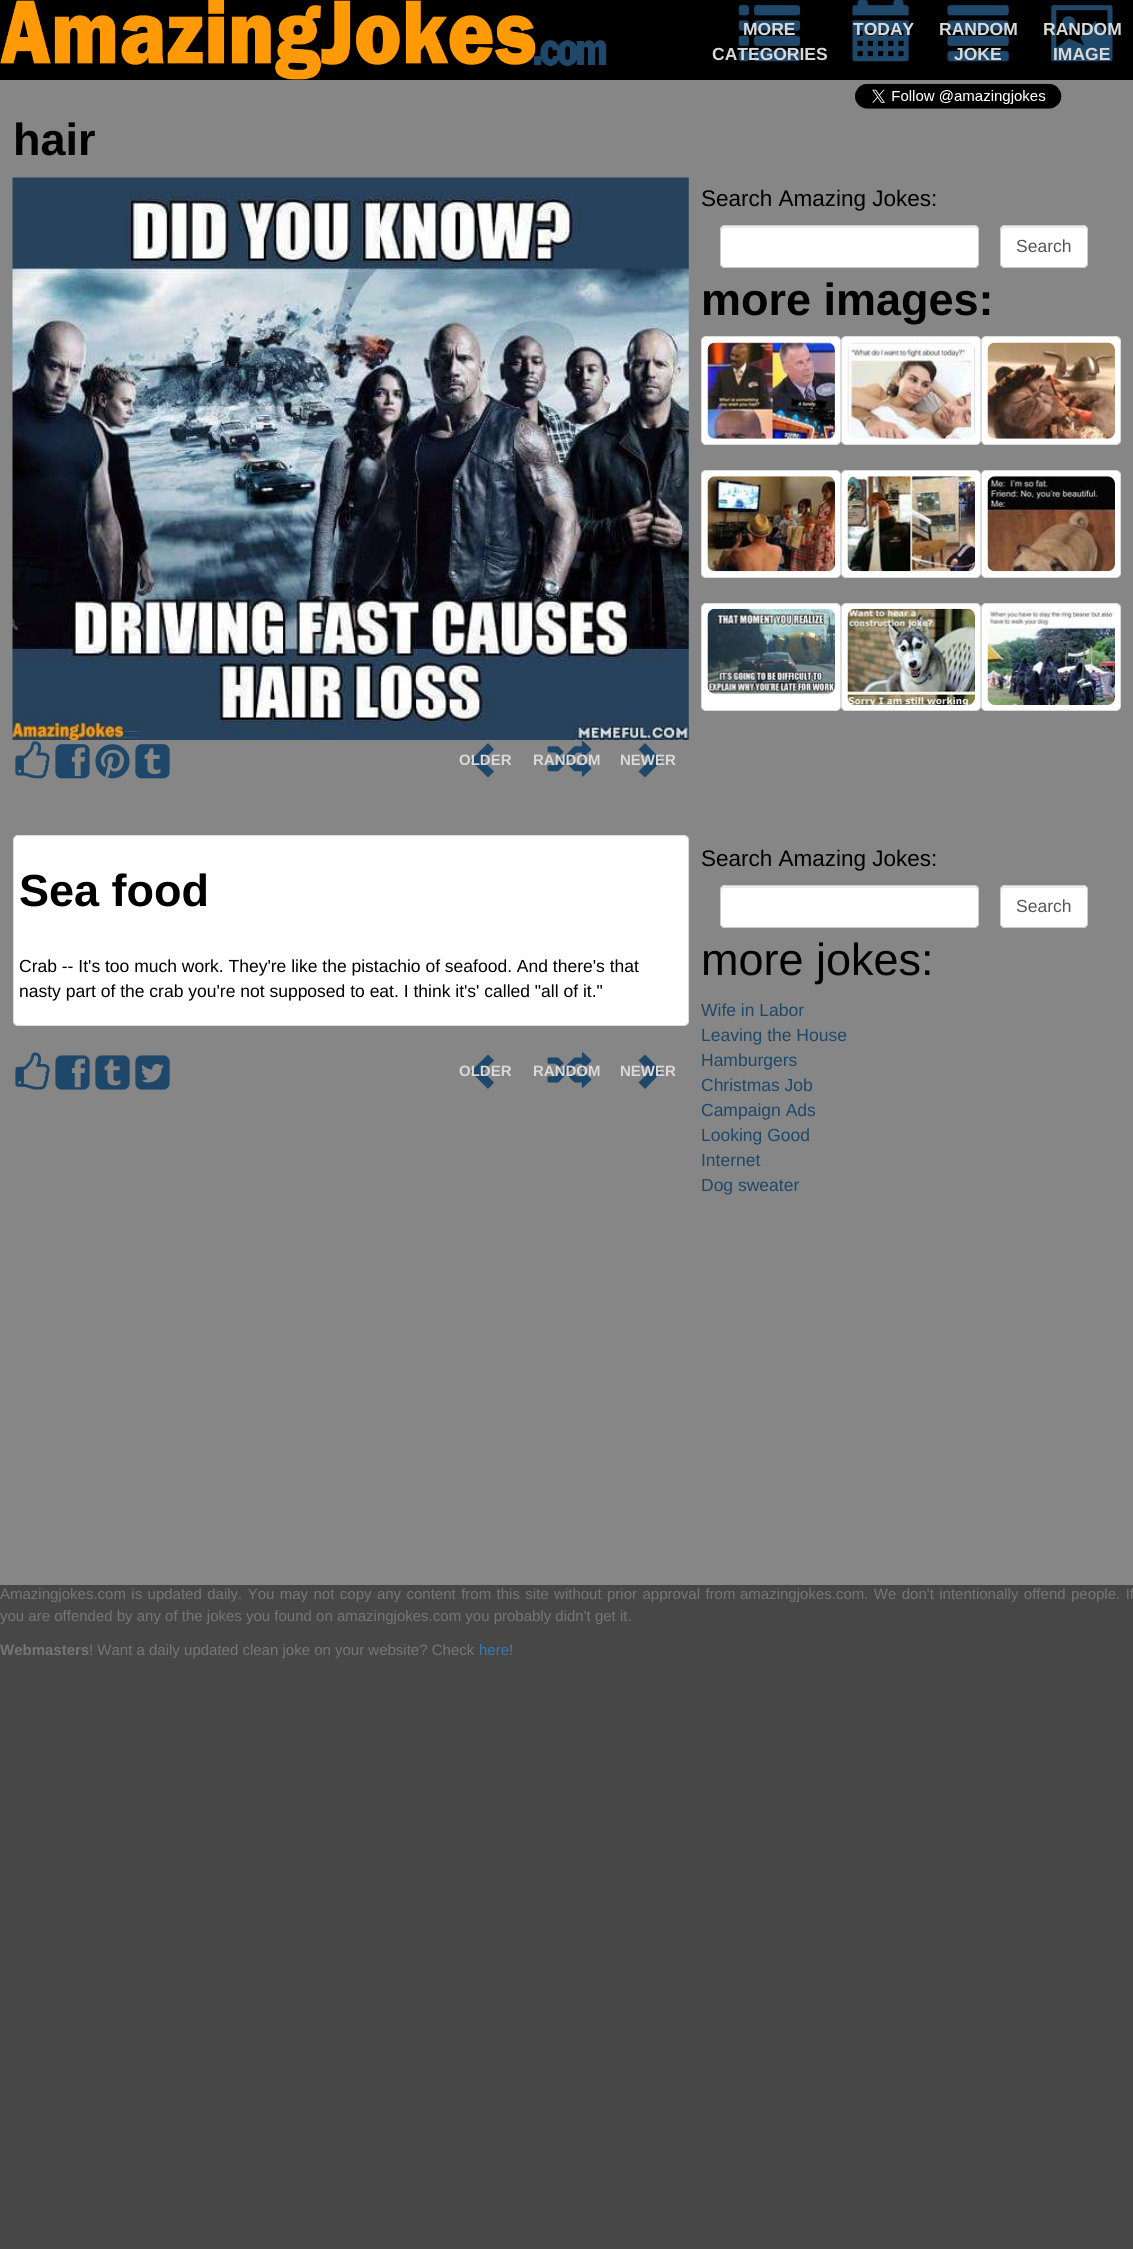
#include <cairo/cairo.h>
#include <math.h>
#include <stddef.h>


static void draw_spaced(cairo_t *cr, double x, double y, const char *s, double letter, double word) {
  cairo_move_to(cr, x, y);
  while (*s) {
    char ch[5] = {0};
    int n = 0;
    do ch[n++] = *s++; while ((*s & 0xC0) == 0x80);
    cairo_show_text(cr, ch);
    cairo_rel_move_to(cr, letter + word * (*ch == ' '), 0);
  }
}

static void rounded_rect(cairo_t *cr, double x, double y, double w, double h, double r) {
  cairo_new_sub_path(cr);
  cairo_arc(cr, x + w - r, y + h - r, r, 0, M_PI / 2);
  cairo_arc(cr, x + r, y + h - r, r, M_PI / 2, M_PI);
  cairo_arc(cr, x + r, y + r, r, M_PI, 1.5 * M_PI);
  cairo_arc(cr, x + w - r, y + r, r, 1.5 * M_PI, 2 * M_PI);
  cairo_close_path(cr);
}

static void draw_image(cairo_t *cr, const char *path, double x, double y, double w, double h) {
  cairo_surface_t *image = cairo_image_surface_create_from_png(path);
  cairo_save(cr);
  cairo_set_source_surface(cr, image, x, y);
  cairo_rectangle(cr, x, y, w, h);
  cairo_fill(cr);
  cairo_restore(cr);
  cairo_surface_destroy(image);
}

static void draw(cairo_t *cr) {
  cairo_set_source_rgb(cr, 71 / 255.0, 71 / 255.0, 71 / 255.0);
  cairo_paint(cr);
  cairo_set_source_rgb(cr, 134 / 255.0, 134 / 255.0, 134 / 255.0);
  cairo_rectangle(cr, 0, 80, 1133, 1505);
  cairo_fill(cr);
  cairo_set_source_rgb(cr, 0, 0, 0);
  cairo_rectangle(cr, 0, 0, 1133, 80);
  cairo_fill(cr);
  draw_image(cr, "images/1.png", 0, 0, 607, 80);
  draw_image(cr, "images/2.png", 738, 5, 62, 57);
  draw_image(cr, "images/3.png", 852, 0, 57, 62);
  draw_image(cr, "images/4.png", 947, 5, 62, 57);
  draw_image(cr, "images/5.png", 1051, 5, 62, 57);
  draw_image(cr, "images/6.png", 855, 83, 207, 26);
  draw_image(cr, "images/7.png", 12, 177, 677, 563);
  draw_image(cr, "images/8.png", 15, 741, 35, 38);
  draw_image(cr, "images/9.png", 55, 744, 35, 35);
  draw_image(cr, "images/10.png", 95, 744, 35, 35);
  draw_image(cr, "images/11.png", 135, 744, 35, 35);
  cairo_set_source_rgb(cr, 30 / 255.0, 71 / 255.0, 105 / 255.0);
  cairo_new_path(cr);
  cairo_move_to(cr, 494, 749.5);
  cairo_line_to(cr, 483, 760.5);
  cairo_line_to(cr, 494, 771.5);
  cairo_line_to(cr, 488, 777.5);
  cairo_line_to(cr, 470.5, 760.5);
  cairo_line_to(cr, 488, 743);
  cairo_close_path(cr);
  cairo_fill(cr);
  draw_image(cr, "images/12.png", 547, 740, 45, 37);
  cairo_new_path(cr);
  cairo_move_to(cr, 662, 760.5);
  cairo_line_to(cr, 645, 777.5);
  cairo_line_to(cr, 638.5, 771.5);
  cairo_line_to(cr, 649.5, 760.5);
  cairo_line_to(cr, 638.5, 749.5);
  cairo_line_to(cr, 645, 743);
  cairo_close_path(cr);
  cairo_fill(cr);
  cairo_set_source_rgb(cr, 1, 1, 1);
  rounded_rect(cr, 720, 225, 259, 43, 5);
  cairo_fill(cr);
  cairo_set_source_rgb(cr, 236 / 255.0, 236 / 255.0, 236 / 255.0);
  cairo_new_path(cr);
  cairo_move_to(cr, 725, 228);
  cairo_line_to(cr, 974, 228);
  cairo_curve_to(cr, 976, 228, 978, 229, 978, 231);
  cairo_line_to(cr, 978, 230);
  cairo_curve_to(cr, 978, 228, 976, 226, 974, 226);
  cairo_line_to(cr, 725, 226);
  cairo_curve_to(cr, 723, 226, 721, 228, 721, 230);
  cairo_line_to(cr, 721, 231);
  cairo_curve_to(cr, 721, 229, 723, 228, 725, 228);
  cairo_close_path(cr);
  cairo_fill(cr);
  rounded_rect(cr, 720.5, 225.5, 258, 42, 4.5);
  cairo_set_source_rgb(cr, 204 / 255.0, 204 / 255.0, 204 / 255.0);
  cairo_set_line_width(cr, 1);
  cairo_stroke(cr);
  cairo_set_source_rgb(cr, 1, 1, 1);
  rounded_rect(cr, 1000, 225, 88, 43, 5);
  cairo_fill(cr);
  cairo_set_source_rgb(cr, 236 / 255.0, 236 / 255.0, 236 / 255.0);
  cairo_new_path(cr);
  cairo_move_to(cr, 1005, 228);
  cairo_line_to(cr, 1082, 228);
  cairo_curve_to(cr, 1085, 228, 1086, 229, 1086, 231);
  cairo_curve_to(cr, 1086, 223, 1074, 226, 1069, 226);
  cairo_line_to(cr, 1018, 226);
  cairo_curve_to(cr, 1013, 226, 1001, 223, 1001, 231);
  cairo_curve_to(cr, 1001, 229, 1003, 228, 1005, 228);
  cairo_close_path(cr);
  cairo_fill(cr);
  rounded_rect(cr, 1000.5, 225.5, 87, 42, 4.5);
  cairo_set_source_rgb(cr, 204 / 255.0, 204 / 255.0, 204 / 255.0);
  cairo_stroke(cr);
  cairo_set_source_rgb(cr, 1, 1, 1);
  rounded_rect(cr, 701.5, 336.5, 139, 108, 4.5);
  cairo_fill_preserve(cr);
  cairo_set_source_rgb(cr, 221 / 255.0, 221 / 255.0, 221 / 255.0);
  cairo_stroke(cr);
  draw_image(cr, "images/13.png", 707, 342, 128, 97);
  cairo_set_source_rgb(cr, 1, 1, 1);
  rounded_rect(cr, 841.5, 336.5, 139, 108, 4.5);
  cairo_fill_preserve(cr);
  cairo_set_source_rgb(cr, 221 / 255.0, 221 / 255.0, 221 / 255.0);
  cairo_stroke(cr);
  draw_image(cr, "images/14.png", 847, 342, 128, 97);
  cairo_set_source_rgb(cr, 1, 1, 1);
  rounded_rect(cr, 981.5, 336.5, 139, 108, 4.5);
  cairo_fill_preserve(cr);
  cairo_set_source_rgb(cr, 221 / 255.0, 221 / 255.0, 221 / 255.0);
  cairo_stroke(cr);
  draw_image(cr, "images/15.png", 987, 342, 128, 97);
  cairo_set_source_rgb(cr, 1, 1, 1);
  rounded_rect(cr, 701.5, 470.5, 139, 107, 4.5);
  cairo_fill_preserve(cr);
  cairo_set_source_rgb(cr, 221 / 255.0, 221 / 255.0, 221 / 255.0);
  cairo_stroke(cr);
  draw_image(cr, "images/16.png", 707, 476, 128, 96);
  cairo_set_source_rgb(cr, 1, 1, 1);
  rounded_rect(cr, 841.5, 470.5, 139, 107, 4.5);
  cairo_fill_preserve(cr);
  cairo_set_source_rgb(cr, 221 / 255.0, 221 / 255.0, 221 / 255.0);
  cairo_stroke(cr);
  draw_image(cr, "images/17.png", 847, 476, 128, 96);
  cairo_set_source_rgb(cr, 1, 1, 1);
  rounded_rect(cr, 981.5, 470.5, 139, 107, 4.5);
  cairo_fill_preserve(cr);
  cairo_set_source_rgb(cr, 221 / 255.0, 221 / 255.0, 221 / 255.0);
  cairo_stroke(cr);
  draw_image(cr, "images/18.png", 987, 476, 128, 96);
  cairo_set_source_rgb(cr, 1, 1, 1);
  rounded_rect(cr, 701.5, 603.5, 139, 107, 4.5);
  cairo_fill_preserve(cr);
  cairo_set_source_rgb(cr, 221 / 255.0, 221 / 255.0, 221 / 255.0);
  cairo_stroke(cr);
  draw_image(cr, "images/19.png", 707, 608, 128, 86);
  cairo_set_source_rgb(cr, 1, 1, 1);
  rounded_rect(cr, 841.5, 603.5, 139, 107, 4.5);
  cairo_fill_preserve(cr);
  cairo_set_source_rgb(cr, 221 / 255.0, 221 / 255.0, 221 / 255.0);
  cairo_stroke(cr);
  draw_image(cr, "images/20.png", 847, 608, 128, 97);
  cairo_set_source_rgb(cr, 1, 1, 1);
  rounded_rect(cr, 981.5, 603.5, 139, 107, 4.5);
  cairo_fill_preserve(cr);
  cairo_set_source_rgb(cr, 221 / 255.0, 221 / 255.0, 221 / 255.0);
  cairo_stroke(cr);
  draw_image(cr, "images/21.png", 987, 609, 128, 96);
  cairo_set_source_rgb(cr, 1, 1, 1);
  rounded_rect(cr, 13.5, 835.5, 675, 190, 4.5);
  cairo_fill_preserve(cr);
  cairo_set_source_rgb(cr, 221 / 255.0, 221 / 255.0, 221 / 255.0);
  cairo_stroke(cr);
  draw_image(cr, "images/22.png", 15, 1052, 35, 38);
  draw_image(cr, "images/23.png", 55, 1055, 35, 35);
  draw_image(cr, "images/24.png", 95, 1055, 35, 35);
  draw_image(cr, "images/25.png", 135, 1055, 35, 35);
  cairo_set_source_rgb(cr, 30 / 255.0, 71 / 255.0, 105 / 255.0);
  cairo_new_path(cr);
  cairo_move_to(cr, 494, 1060.5);
  cairo_line_to(cr, 483, 1071.5);
  cairo_line_to(cr, 494, 1082.5);
  cairo_line_to(cr, 488, 1089);
  cairo_line_to(cr, 470.5, 1071.5);
  cairo_line_to(cr, 488, 1054.5);
  cairo_close_path(cr);
  cairo_fill(cr);
  draw_image(cr, "images/26.png", 547, 1052, 45, 36);
  cairo_new_path(cr);
  cairo_move_to(cr, 662, 1071.5);
  cairo_line_to(cr, 645, 1089);
  cairo_line_to(cr, 638.5, 1082.5);
  cairo_line_to(cr, 649.5, 1071.5);
  cairo_line_to(cr, 638.5, 1060.5);
  cairo_line_to(cr, 645, 1054.5);
  cairo_close_path(cr);
  cairo_fill(cr);
  cairo_set_source_rgb(cr, 1, 1, 1);
  rounded_rect(cr, 720, 885, 259, 43, 5);
  cairo_fill(cr);
  cairo_set_source_rgb(cr, 236 / 255.0, 236 / 255.0, 236 / 255.0);
  cairo_new_path(cr);
  cairo_move_to(cr, 725, 888);
  cairo_line_to(cr, 974, 888);
  cairo_curve_to(cr, 976, 888, 978, 889, 978, 891);
  cairo_line_to(cr, 978, 890);
  cairo_curve_to(cr, 978, 888, 976, 886, 974, 886);
  cairo_line_to(cr, 725, 886);
  cairo_curve_to(cr, 723, 886, 721, 888, 721, 890);
  cairo_line_to(cr, 721, 891);
  cairo_curve_to(cr, 721, 889, 723, 888, 725, 888);
  cairo_close_path(cr);
  cairo_fill(cr);
  rounded_rect(cr, 720.5, 885.5, 258, 42, 4.5);
  cairo_set_source_rgb(cr, 204 / 255.0, 204 / 255.0, 204 / 255.0);
  cairo_stroke(cr);
  cairo_set_source_rgb(cr, 1, 1, 1);
  rounded_rect(cr, 1000, 885, 88, 43, 5);
  cairo_fill(cr);
  cairo_set_source_rgb(cr, 236 / 255.0, 236 / 255.0, 236 / 255.0);
  cairo_new_path(cr);
  cairo_move_to(cr, 1005, 888);
  cairo_line_to(cr, 1082, 888);
  cairo_curve_to(cr, 1085, 888, 1086, 889, 1086, 891);
  cairo_curve_to(cr, 1086, 883, 1074, 886, 1069, 886);
  cairo_line_to(cr, 1018, 886);
  cairo_curve_to(cr, 1013, 886, 1001, 883, 1001, 891);
  cairo_curve_to(cr, 1001, 889, 1003, 888, 1005, 888);
  cairo_close_path(cr);
  cairo_fill(cr);
  rounded_rect(cr, 1000.5, 885.5, 87, 42, 4.5);
  cairo_set_source_rgb(cr, 204 / 255.0, 204 / 255.0, 204 / 255.0);
  cairo_stroke(cr);
  cairo_select_font_face(cr, "Liberation Sans", CAIRO_FONT_SLANT_NORMAL, CAIRO_FONT_WEIGHT_BOLD);
  cairo_set_font_size(cr, 17.5);
  cairo_set_source_rgb(cr, 217 / 255.0, 217 / 255.0, 217 / 255.0);
  cairo_move_to(cr, 743, 35);
  cairo_show_text(cr, "MORE");
  cairo_move_to(cr, 712, 60);
  cairo_show_text(cr, "CATEGORIES");
  cairo_move_to(cr, 853, 35);
  cairo_show_text(cr, "TODAY");
  cairo_move_to(cr, 939, 35);
  cairo_show_text(cr, "RANDOM");
  cairo_move_to(cr, 954, 60);
  cairo_show_text(cr, "JOKE");
  cairo_move_to(cr, 1043, 35);
  cairo_show_text(cr, "RANDOM");
  cairo_move_to(cr, 1053, 60);
  cairo_show_text(cr, "IMAGE");
  cairo_set_font_size(cr, 45);
  cairo_set_source_rgb(cr, 0, 0, 0);
  cairo_move_to(cr, 13, 155);
  cairo_show_text(cr, "hair");
  cairo_set_font_size(cr, 15);
  cairo_set_source_rgb(cr, 217 / 255.0, 217 / 255.0, 217 / 255.0);
  cairo_move_to(cr, 459, 765);
  cairo_show_text(cr, "OLDER");
  cairo_move_to(cr, 533, 765);
  cairo_show_text(cr, "RANDOM");
  cairo_move_to(cr, 620, 765);
  cairo_show_text(cr, "NEWER");
  cairo_select_font_face(cr, "Liberation Sans", CAIRO_FONT_SLANT_NORMAL, CAIRO_FONT_WEIGHT_NORMAL);
  cairo_set_font_size(cr, 22.5);
  cairo_set_source_rgb(cr, 0, 0, 0);
  cairo_move_to(cr, 701, 206);
  cairo_show_text(cr, "Search Amazing Jokes:");
  cairo_set_font_size(cr, 17.5);
  cairo_set_source_rgb(cr, 85 / 255.0, 85 / 255.0, 85 / 255.0);
  cairo_move_to(cr, 1016, 252);
  cairo_show_text(cr, "Search");
  cairo_select_font_face(cr, "Liberation Sans", CAIRO_FONT_SLANT_NORMAL, CAIRO_FONT_WEIGHT_BOLD);
  cairo_set_font_size(cr, 45);
  cairo_set_source_rgb(cr, 0, 0, 0);
  cairo_move_to(cr, 701, 315);
  cairo_show_text(cr, "more images:");
  cairo_move_to(cr, 19, 906);
  cairo_show_text(cr, "Sea food");
  cairo_select_font_face(cr, "Liberation Sans", CAIRO_FONT_SLANT_NORMAL, CAIRO_FONT_WEIGHT_NORMAL);
  cairo_set_font_size(cr, 17.5);
  cairo_move_to(cr, 19, 972);
  cairo_show_text(cr, "Crab -- It's too much work. They're like the pistachio of seafood. And there's that");
  cairo_move_to(cr, 19, 997);
  cairo_show_text(cr, "nasty part of the crab you're not supposed to eat. I think it's' called \"all of it.\"");
  cairo_select_font_face(cr, "Liberation Sans", CAIRO_FONT_SLANT_NORMAL, CAIRO_FONT_WEIGHT_BOLD);
  cairo_set_font_size(cr, 15);
  cairo_set_source_rgb(cr, 217 / 255.0, 217 / 255.0, 217 / 255.0);
  cairo_move_to(cr, 459, 1076);
  cairo_show_text(cr, "OLDER");
  cairo_move_to(cr, 533, 1076);
  cairo_show_text(cr, "RANDOM");
  cairo_move_to(cr, 620, 1076);
  cairo_show_text(cr, "NEWER");
  cairo_select_font_face(cr, "Liberation Sans", CAIRO_FONT_SLANT_NORMAL, CAIRO_FONT_WEIGHT_NORMAL);
  cairo_set_font_size(cr, 22.5);
  cairo_set_source_rgb(cr, 0, 0, 0);
  cairo_move_to(cr, 701, 866);
  cairo_show_text(cr, "Search Amazing Jokes:");
  cairo_set_font_size(cr, 17.5);
  cairo_set_source_rgb(cr, 85 / 255.0, 85 / 255.0, 85 / 255.0);
  cairo_move_to(cr, 1016, 912);
  cairo_show_text(cr, "Search");
  cairo_set_font_size(cr, 45);
  cairo_set_source_rgb(cr, 0, 0, 0);
  cairo_move_to(cr, 701, 975);
  cairo_show_text(cr, "more jokes:");
  cairo_set_font_size(cr, 17.5);
  cairo_set_source_rgb(cr, 30 / 255.0, 71 / 255.0, 105 / 255.0);
  cairo_move_to(cr, 701, 1016);
  cairo_show_text(cr, "Wife in Labor");
  cairo_move_to(cr, 701, 1041);
  cairo_show_text(cr, "Leaving the House");
  cairo_move_to(cr, 701, 1066);
  cairo_show_text(cr, "Hamburgers");
  cairo_move_to(cr, 701, 1091);
  cairo_show_text(cr, "Christmas Job");
  cairo_move_to(cr, 701, 1116);
  cairo_show_text(cr, "Campaign Ads");
  cairo_move_to(cr, 701, 1141);
  cairo_show_text(cr, "Looking Good");
  cairo_move_to(cr, 701, 1166);
  cairo_show_text(cr, "Internet");
  cairo_move_to(cr, 701, 1191);
  cairo_show_text(cr, "Dog sweater");
  cairo_set_font_size(cr, 15);
  cairo_set_source_rgb(cr, 117 / 255.0, 117 / 255.0, 117 / 255.0);
  draw_spaced(cr, 0, 1599, "Amazingjokes.com is updated daily. You may not copy any content from this site without prior approval from", 0, 1.25);
  draw_spaced(cr, 740, 1599, "amazingjokes.com. We don't intentionally offend people. If", 0, 1.25);
  cairo_move_to(cr, 0, 1621);
  cairo_show_text(cr, "you are offended by any of the jokes you found on amazingjokes.com you probably didn't get it.");
  cairo_select_font_face(cr, "Liberation Sans", CAIRO_FONT_SLANT_NORMAL, CAIRO_FONT_WEIGHT_BOLD);
  cairo_move_to(cr, 0, 1655);
  cairo_show_text(cr, "Webmasters");
  cairo_select_font_face(cr, "Liberation Sans", CAIRO_FONT_SLANT_NORMAL, CAIRO_FONT_WEIGHT_NORMAL);
  cairo_move_to(cr, 89, 1655);
  cairo_show_text(cr, "! Want a daily updated clean joke on your website? Check");
  cairo_set_source_rgb(cr, 51 / 255.0, 122 / 255.0, 183 / 255.0);
  cairo_move_to(cr, 479, 1655);
  cairo_show_text(cr, "here");
  cairo_set_source_rgb(cr, 117 / 255.0, 117 / 255.0, 117 / 255.0);
  cairo_move_to(cr, 509, 1655);
  cairo_show_text(cr, "!");
}

int main(void) {
  cairo_surface_t *surface = cairo_image_surface_create(CAIRO_FORMAT_RGB24, 1133, 2249);
  cairo_t *cr = cairo_create(surface);
  cairo_font_options_t *options = cairo_font_options_create();
  cairo_font_options_set_hint_metrics(options, CAIRO_HINT_METRICS_OFF);
  cairo_font_options_set_hint_style(options, CAIRO_HINT_STYLE_NONE);
  cairo_set_font_options(cr, options);
  cairo_set_miter_limit(cr, 4);
  draw(cr);
  cairo_surface_write_to_png(surface, "out.png");
  cairo_font_options_destroy(options);
  cairo_destroy(cr);
  cairo_surface_destroy(surface);
  return 0;
}
